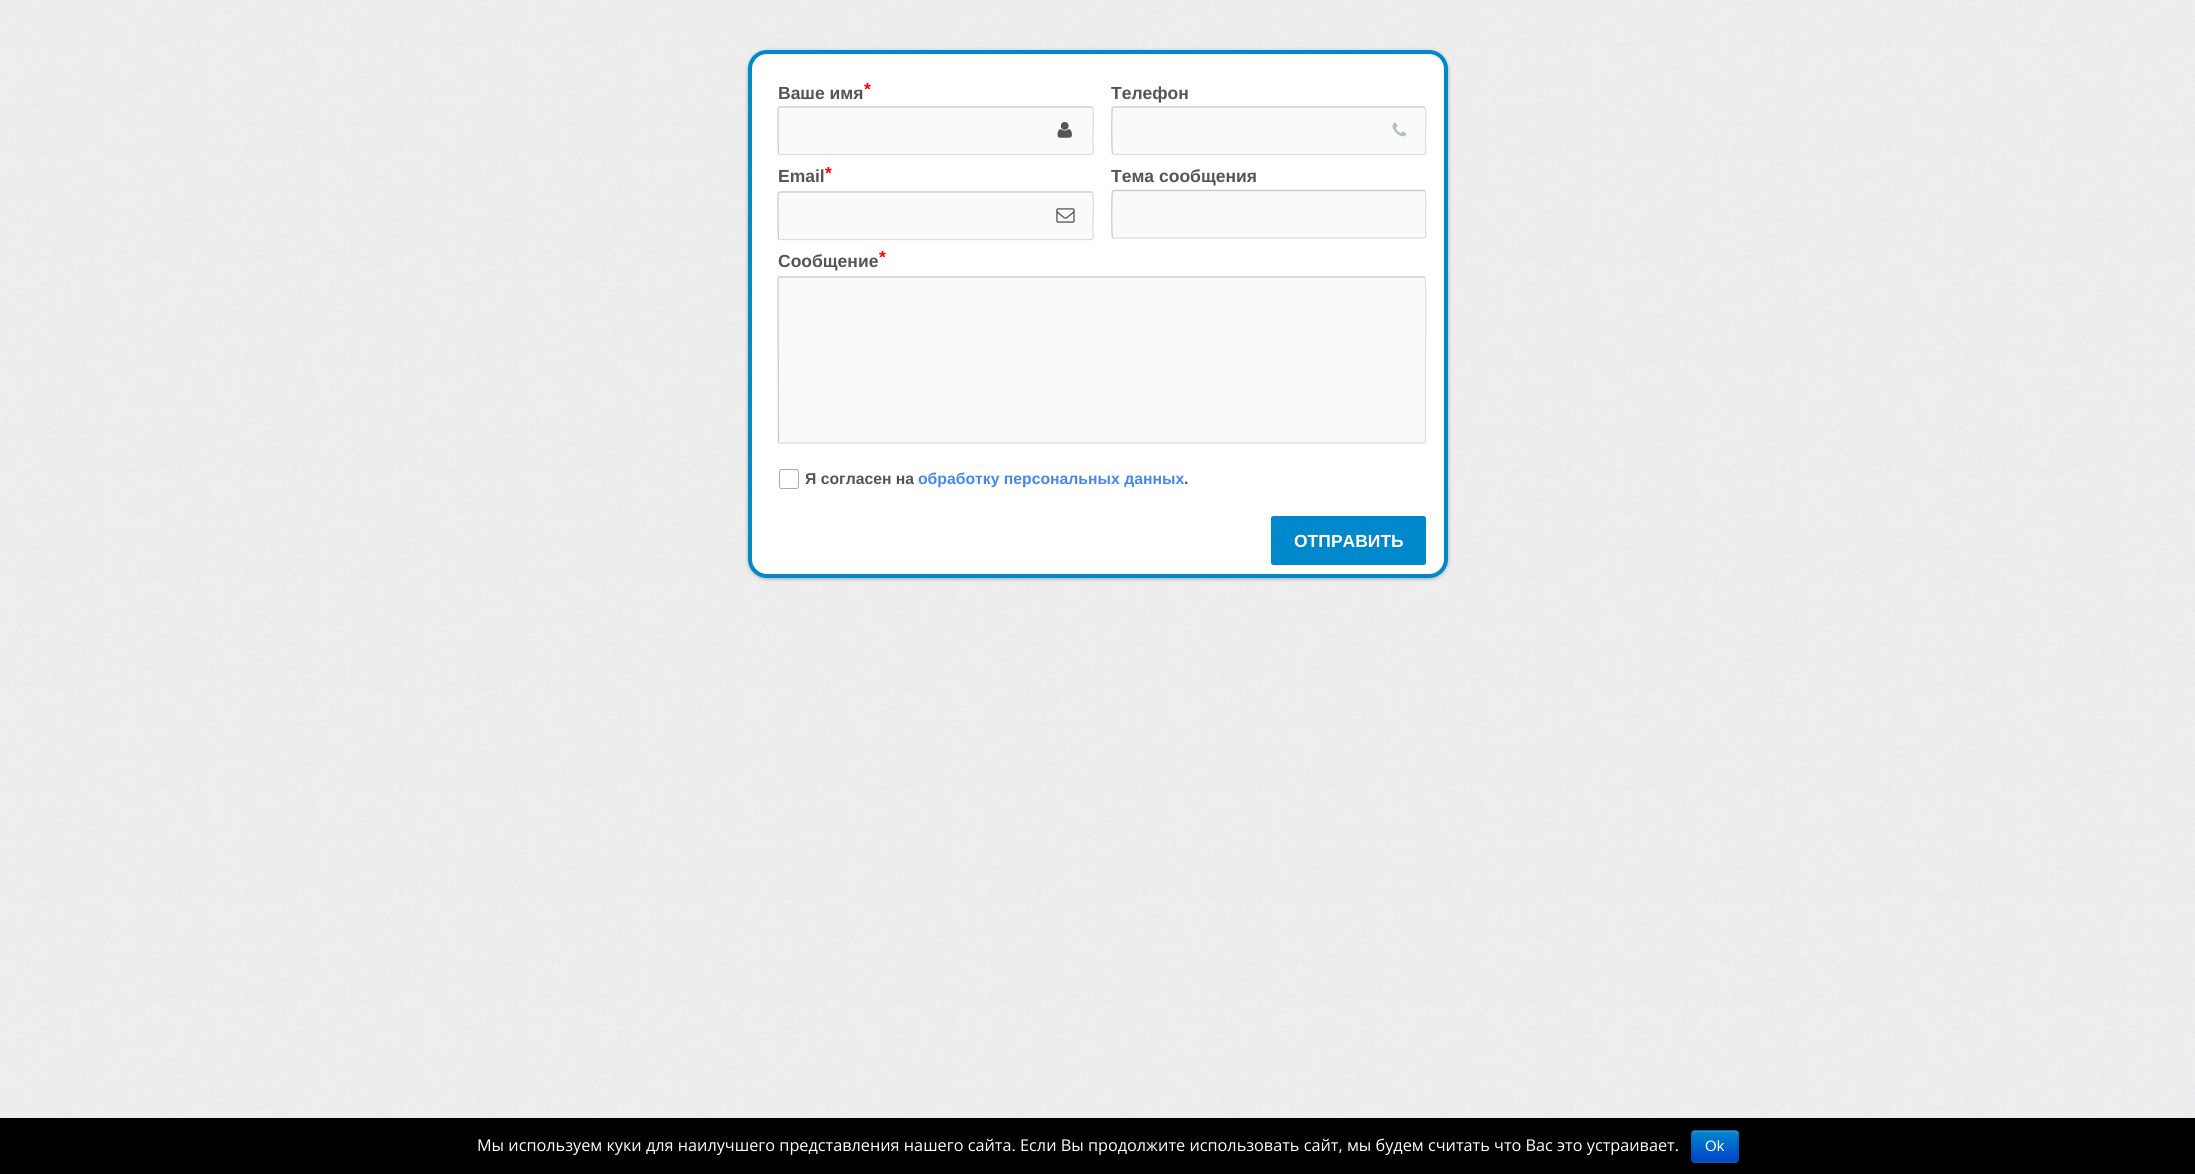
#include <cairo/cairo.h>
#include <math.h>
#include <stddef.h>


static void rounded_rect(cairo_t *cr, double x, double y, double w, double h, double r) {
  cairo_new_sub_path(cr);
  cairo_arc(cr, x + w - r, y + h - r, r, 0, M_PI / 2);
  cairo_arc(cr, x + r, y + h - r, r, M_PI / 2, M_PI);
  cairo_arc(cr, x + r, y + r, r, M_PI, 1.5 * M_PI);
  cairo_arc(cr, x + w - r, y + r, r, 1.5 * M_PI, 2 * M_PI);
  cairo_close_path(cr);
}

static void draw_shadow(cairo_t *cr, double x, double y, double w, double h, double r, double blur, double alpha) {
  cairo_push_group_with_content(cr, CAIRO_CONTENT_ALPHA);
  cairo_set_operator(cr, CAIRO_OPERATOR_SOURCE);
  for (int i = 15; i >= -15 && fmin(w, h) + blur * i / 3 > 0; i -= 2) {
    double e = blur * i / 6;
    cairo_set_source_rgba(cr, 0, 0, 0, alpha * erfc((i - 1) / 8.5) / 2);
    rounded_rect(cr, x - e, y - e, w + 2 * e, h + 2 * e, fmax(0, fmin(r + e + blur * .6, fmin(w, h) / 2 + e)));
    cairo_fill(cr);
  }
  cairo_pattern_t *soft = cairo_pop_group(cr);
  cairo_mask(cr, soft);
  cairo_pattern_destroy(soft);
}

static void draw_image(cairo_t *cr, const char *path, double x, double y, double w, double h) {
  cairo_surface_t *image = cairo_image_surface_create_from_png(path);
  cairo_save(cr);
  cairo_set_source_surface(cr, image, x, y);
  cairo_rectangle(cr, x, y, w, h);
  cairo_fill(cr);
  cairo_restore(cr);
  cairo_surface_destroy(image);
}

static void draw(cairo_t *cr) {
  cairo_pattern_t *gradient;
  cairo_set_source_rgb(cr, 1, 1, 1);
  cairo_paint(cr);
  draw_image(cr, "images/1.png", 0, 0, 2195, 1118);
  cairo_set_source_rgb(cr, 0, 0, 0);
  draw_shadow(cr, 748, 51, 700, 528, 19, 2, 0.3);
  cairo_set_source_rgb(cr, 1, 1, 1);
  rounded_rect(cr, 750, 52, 696, 524, 17);
  cairo_fill_preserve(cr);
  cairo_set_source_rgb(cr, 0, 136 / 255.0, 204 / 255.0);
  cairo_set_line_width(cr, 4);
  cairo_stroke(cr);
  cairo_set_source_rgb(cr, 250 / 255.0, 250 / 255.0, 250 / 255.0);
  rounded_rect(cr, 778, 106, 316, 49, 2.5);
  cairo_fill(cr);
  cairo_new_path(cr);
  cairo_move_to(cr, 778.5, 107.5);
  cairo_line_to(cr, 780, 107);
  cairo_line_to(cr, 1091, 107);
  cairo_line_to(cr, 1092.5, 107.5);
  cairo_set_source_rgb(cr, 198 / 255.0, 198 / 255.0, 198 / 255.0);
  cairo_set_line_width(cr, 1.2);
  cairo_stroke(cr);
  cairo_new_path(cr);
  cairo_move_to(cr, 1092.5, 107.5);
  cairo_curve_to(cr, 1094, 109, 1093, 134, 1093, 138);
  cairo_line_to(cr, 1093, 145);
  cairo_curve_to(cr, 1093, 148.5, 1094.5, 154.5, 1091, 154.5);
  cairo_line_to(cr, 780, 154.5);
  cairo_line_to(cr, 778.5, 154);
  cairo_set_source_rgb(cr, 221 / 255.0, 221 / 255.0, 221 / 255.0);
  cairo_stroke(cr);
  cairo_new_path(cr);
  cairo_move_to(cr, 778.5, 154);
  cairo_curve_to(cr, 778, 153, 777.5, 108.5, 778.5, 107.5);
  cairo_set_source_rgb(cr, 201 / 255.0, 201 / 255.0, 201 / 255.0);
  cairo_stroke(cr);
  draw_image(cr, "images/2.png", 1057, 121, 15, 17);
  cairo_set_source_rgb(cr, 250 / 255.0, 250 / 255.0, 250 / 255.0);
  rounded_rect(cr, 1111, 106, 315, 49, 2.5);
  cairo_fill(cr);
  cairo_new_path(cr);
  cairo_move_to(cr, 1112.5, 107.5);
  cairo_line_to(cr, 1114, 107);
  cairo_line_to(cr, 1424, 107);
  cairo_line_to(cr, 1425, 107.5);
  cairo_set_source_rgb(cr, 198 / 255.0, 198 / 255.0, 198 / 255.0);
  cairo_stroke(cr);
  cairo_new_path(cr);
  cairo_move_to(cr, 1425, 107.5);
  cairo_curve_to(cr, 1426.5, 109, 1425.5, 134, 1425.5, 138);
  cairo_line_to(cr, 1425.5, 145);
  cairo_curve_to(cr, 1425.5, 148.5, 1427, 154.5, 1424, 154.5);
  cairo_line_to(cr, 1114, 154.5);
  cairo_line_to(cr, 1112.5, 154);
  cairo_set_source_rgb(cr, 221 / 255.0, 221 / 255.0, 221 / 255.0);
  cairo_stroke(cr);
  cairo_new_path(cr);
  cairo_move_to(cr, 1112.5, 154);
  cairo_line_to(cr, 1112.5, 153.5);
  cairo_curve_to(cr, 1111.5, 152.5, 1111.5, 108.5, 1112.5, 107.5);
  cairo_set_source_rgb(cr, 201 / 255.0, 201 / 255.0, 201 / 255.0);
  cairo_stroke(cr);
  draw_image(cr, "images/3.png", 1392, 122, 15, 15);
  cairo_set_source_rgb(cr, 250 / 255.0, 250 / 255.0, 250 / 255.0);
  rounded_rect(cr, 778, 191, 316, 49, 2.5);
  cairo_fill(cr);
  cairo_new_path(cr);
  cairo_move_to(cr, 778.5, 192.5);
  cairo_line_to(cr, 780, 192);
  cairo_line_to(cr, 1091, 192);
  cairo_line_to(cr, 1092.5, 192.5);
  cairo_set_source_rgb(cr, 198 / 255.0, 198 / 255.0, 198 / 255.0);
  cairo_stroke(cr);
  cairo_new_path(cr);
  cairo_move_to(cr, 1092.5, 192.5);
  cairo_curve_to(cr, 1094, 194, 1093, 219, 1093, 223);
  cairo_line_to(cr, 1093, 230);
  cairo_curve_to(cr, 1093, 233.5, 1094.5, 239.5, 1091, 239.5);
  cairo_line_to(cr, 780, 239.5);
  cairo_line_to(cr, 778.5, 239);
  cairo_set_source_rgb(cr, 221 / 255.0, 221 / 255.0, 221 / 255.0);
  cairo_stroke(cr);
  cairo_new_path(cr);
  cairo_move_to(cr, 778.5, 239);
  cairo_curve_to(cr, 778, 238, 777.5, 193.5, 778.5, 192.5);
  cairo_set_source_rgb(cr, 201 / 255.0, 201 / 255.0, 201 / 255.0);
  cairo_stroke(cr);
  draw_image(cr, "images/4.png", 1056, 208, 19, 15);
  cairo_set_source_rgb(cr, 250 / 255.0, 250 / 255.0, 250 / 255.0);
  rounded_rect(cr, 1111, 190, 315, 49, 2.5);
  cairo_fill(cr);
  cairo_new_path(cr);
  cairo_move_to(cr, 1112.5, 191);
  cairo_line_to(cr, 1114, 190.5);
  cairo_line_to(cr, 1424, 190.5);
  cairo_line_to(cr, 1425, 191);
  cairo_set_source_rgb(cr, 198 / 255.0, 198 / 255.0, 198 / 255.0);
  cairo_stroke(cr);
  cairo_new_path(cr);
  cairo_move_to(cr, 1425, 191);
  cairo_curve_to(cr, 1426.5, 192.5, 1425.5, 218, 1425.5, 221.5);
  cairo_line_to(cr, 1425.5, 229);
  cairo_curve_to(cr, 1425.5, 232.5, 1427, 238, 1424, 238);
  cairo_line_to(cr, 1114, 238);
  cairo_line_to(cr, 1112.5, 237.5);
  cairo_set_source_rgb(cr, 221 / 255.0, 221 / 255.0, 221 / 255.0);
  cairo_stroke(cr);
  cairo_new_path(cr);
  cairo_move_to(cr, 1112.5, 237.5);
  cairo_curve_to(cr, 1111.5, 236.5, 1111.5, 192.5, 1112.5, 191.5);
  cairo_line_to(cr, 1112.5, 191);
  cairo_set_source_rgb(cr, 201 / 255.0, 201 / 255.0, 201 / 255.0);
  cairo_stroke(cr);
  cairo_set_source_rgb(cr, 250 / 255.0, 250 / 255.0, 250 / 255.0);
  rounded_rect(cr, 778, 276, 648, 168, 2.5);
  cairo_fill(cr);
  cairo_new_path(cr);
  cairo_move_to(cr, 778.5, 277.5);
  cairo_line_to(cr, 780, 277);
  cairo_line_to(cr, 1424, 277);
  cairo_line_to(cr, 1425, 277.5);
  cairo_set_source_rgb(cr, 198 / 255.0, 198 / 255.0, 198 / 255.0);
  cairo_stroke(cr);
  cairo_new_path(cr);
  cairo_move_to(cr, 1425, 277.5);
  cairo_curve_to(cr, 1426.5, 279, 1425.5, 352.5, 1425.5, 360);
  cairo_line_to(cr, 1425.5, 441);
  cairo_curve_to(cr, 1425.5, 442.5, 1425, 443, 1424, 443);
  cairo_line_to(cr, 780, 443);
  cairo_line_to(cr, 778.5, 442.5);
  cairo_set_source_rgb(cr, 221 / 255.0, 221 / 255.0, 221 / 255.0);
  cairo_stroke(cr);
  cairo_new_path(cr);
  cairo_move_to(cr, 778.5, 442.5);
  cairo_line_to(cr, 778.5, 442);
  cairo_line_to(cr, 778, 306);
  cairo_line_to(cr, 778, 279);
  cairo_line_to(cr, 778.5, 277.5);
  cairo_set_source_rgb(cr, 201 / 255.0, 201 / 255.0, 201 / 255.0);
  cairo_stroke(cr);
  rounded_rect(cr, 779.5, 469.5, 19, 19, 2);
  cairo_set_source_rgb(cr, 170 / 255.0, 170 / 255.0, 170 / 255.0);
  cairo_set_line_width(cr, 1);
  cairo_stroke(cr);
  cairo_set_source_rgb(cr, 0, 136 / 255.0, 204 / 255.0);
  rounded_rect(cr, 1271, 516, 155, 49, 2.5);
  cairo_fill(cr);
  cairo_set_source_rgb(cr, 0, 0, 0);
  cairo_rectangle(cr, 0, 1118, 2195, 56);
  cairo_fill(cr);
  cairo_set_source_rgb(cr, 0, 109 / 255.0, 204 / 255.0);
  rounded_rect(cr, 1691, 1130, 48, 33, 4);
  cairo_fill(cr);
  cairo_save(cr);
  rounded_rect(cr, 1691, 1130, 48, 33, 4);
  cairo_clip(cr);
  gradient = cairo_pattern_create_linear(1715, 1131, 1715, 1161);
  cairo_pattern_add_color_stop_rgba(gradient, 0, 0, 136 / 255.0, 204 / 255.0, 1);
  cairo_pattern_add_color_stop_rgba(gradient, 1, 0, 68 / 255.0, 204 / 255.0, 1);
  cairo_set_source(cr, gradient);
  cairo_pattern_destroy(gradient);
  cairo_rectangle(cr, 1691, 1131, 48, 30);
  cairo_fill(cr);
  cairo_restore(cr);
  cairo_set_source_rgba(cr, 1, 1, 1, 0.2);
  cairo_new_path(cr);
  cairo_move_to(cr, 1695, 1132);
  cairo_line_to(cr, 1735, 1132);
  cairo_curve_to(cr, 1736, 1132, 1738, 1134, 1738, 1135);
  cairo_line_to(cr, 1738, 1134);
  cairo_curve_to(cr, 1738, 1132, 1737, 1131, 1736, 1131);
  cairo_line_to(cr, 1696, 1131);
  cairo_curve_to(cr, 1694, 1131, 1693, 1132, 1693, 1133);
  cairo_close_path(cr);
  cairo_fill(cr);
  cairo_new_path(cr);
  cairo_move_to(cr, 1737, 1161);
  cairo_line_to(cr, 1735, 1162);
  cairo_line_to(cr, 1695, 1162);
  cairo_line_to(cr, 1693, 1161);
  cairo_set_source_rgb(cr, 0, 82 / 255.0, 153 / 255.0);
  cairo_set_line_width(cr, 1.2);
  cairo_stroke(cr);
  cairo_new_path(cr);
  cairo_move_to(cr, 1693, 1161);
  cairo_curve_to(cr, 1690.5, 1159, 1692, 1149, 1692, 1146);
  cairo_curve_to(cr, 1692, 1131.5, 1688.5, 1130.5, 1701.5, 1130.5);
  cairo_line_to(cr, 1728.5, 1130.5);
  cairo_curve_to(cr, 1741.5, 1130.5, 1738, 1131.5, 1738, 1146);
  cairo_curve_to(cr, 1738, 1149, 1739.5, 1159, 1737, 1161);
  cairo_set_source_rgba(cr, 0, 0, 0, 0.1);
  cairo_stroke(cr);
  cairo_select_font_face(cr, "Liberation Sans", CAIRO_FONT_SLANT_NORMAL, CAIRO_FONT_WEIGHT_BOLD);
  cairo_set_font_size(cr, 17.5);
  cairo_set_source_rgb(cr, 85 / 255.0, 85 / 255.0, 85 / 255.0);
  cairo_move_to(cr, 778, 99);
  cairo_show_text(cr, "Ваше имя");
  cairo_set_source_rgb(cr, 1, 0, 0);
  cairo_move_to(cr, 864, 95);
  cairo_show_text(cr, "*");
  cairo_set_source_rgb(cr, 85 / 255.0, 85 / 255.0, 85 / 255.0);
  cairo_move_to(cr, 1111, 99);
  cairo_show_text(cr, "Телефон");
  cairo_move_to(cr, 778, 182);
  cairo_show_text(cr, "Email");
  cairo_set_source_rgb(cr, 1, 0, 0);
  cairo_move_to(cr, 825, 179);
  cairo_show_text(cr, "*");
  cairo_set_source_rgb(cr, 85 / 255.0, 85 / 255.0, 85 / 255.0);
  cairo_move_to(cr, 1111, 182);
  cairo_show_text(cr, "Тема сообщения");
  cairo_move_to(cr, 778, 267);
  cairo_show_text(cr, "Сообщение");
  cairo_set_source_rgb(cr, 1, 0, 0);
  cairo_move_to(cr, 879, 263);
  cairo_show_text(cr, "*");
  cairo_set_font_size(cr, 15.75);
  cairo_set_source_rgb(cr, 85 / 255.0, 85 / 255.0, 85 / 255.0);
  cairo_move_to(cr, 805, 484);
  cairo_show_text(cr, "Я согласен на");
  cairo_set_source_rgb(cr, 68 / 255.0, 136 / 255.0, 238 / 255.0);
  cairo_move_to(cr, 918, 484);
  cairo_show_text(cr, "обработку персональных данных");
  cairo_set_source_rgb(cr, 85 / 255.0, 85 / 255.0, 85 / 255.0);
  cairo_move_to(cr, 1184, 484);
  cairo_show_text(cr, ".");
  cairo_set_font_size(cr, 17.5);
  cairo_set_source_rgb(cr, 1, 1, 1);
  cairo_move_to(cr, 1294, 547);
  cairo_show_text(cr, "ОТПРАВИТЬ");
  cairo_select_font_face(cr, "Open Sans", CAIRO_FONT_SLANT_NORMAL, CAIRO_FONT_WEIGHT_NORMAL);
  cairo_set_font_size(cr, 16.25);
  cairo_move_to(cr, 477, 1151);
  cairo_show_text(cr, "Мы используем куки для наилучшего представления нашего сайта. Если Вы продолжите использовать сайт, мы будем считать что Вас это устраивает.");
  cairo_select_font_face(cr, "Liberation Sans", CAIRO_FONT_SLANT_NORMAL, CAIRO_FONT_WEIGHT_NORMAL);
  cairo_set_font_size(cr, 15);
  cairo_move_to(cr, 1705, 1151);
  cairo_show_text(cr, "Ok");
}

int main(void) {
  cairo_surface_t *surface = cairo_image_surface_create(CAIRO_FORMAT_RGB24, 2195, 1174);
  cairo_t *cr = cairo_create(surface);
  cairo_font_options_t *options = cairo_font_options_create();
  cairo_font_options_set_hint_metrics(options, CAIRO_HINT_METRICS_OFF);
  cairo_font_options_set_hint_style(options, CAIRO_HINT_STYLE_NONE);
  cairo_set_font_options(cr, options);
  cairo_set_miter_limit(cr, 4);
  draw(cr);
  cairo_surface_write_to_png(surface, "out.png");
  cairo_font_options_destroy(options);
  cairo_destroy(cr);
  cairo_surface_destroy(surface);
  return 0;
}
